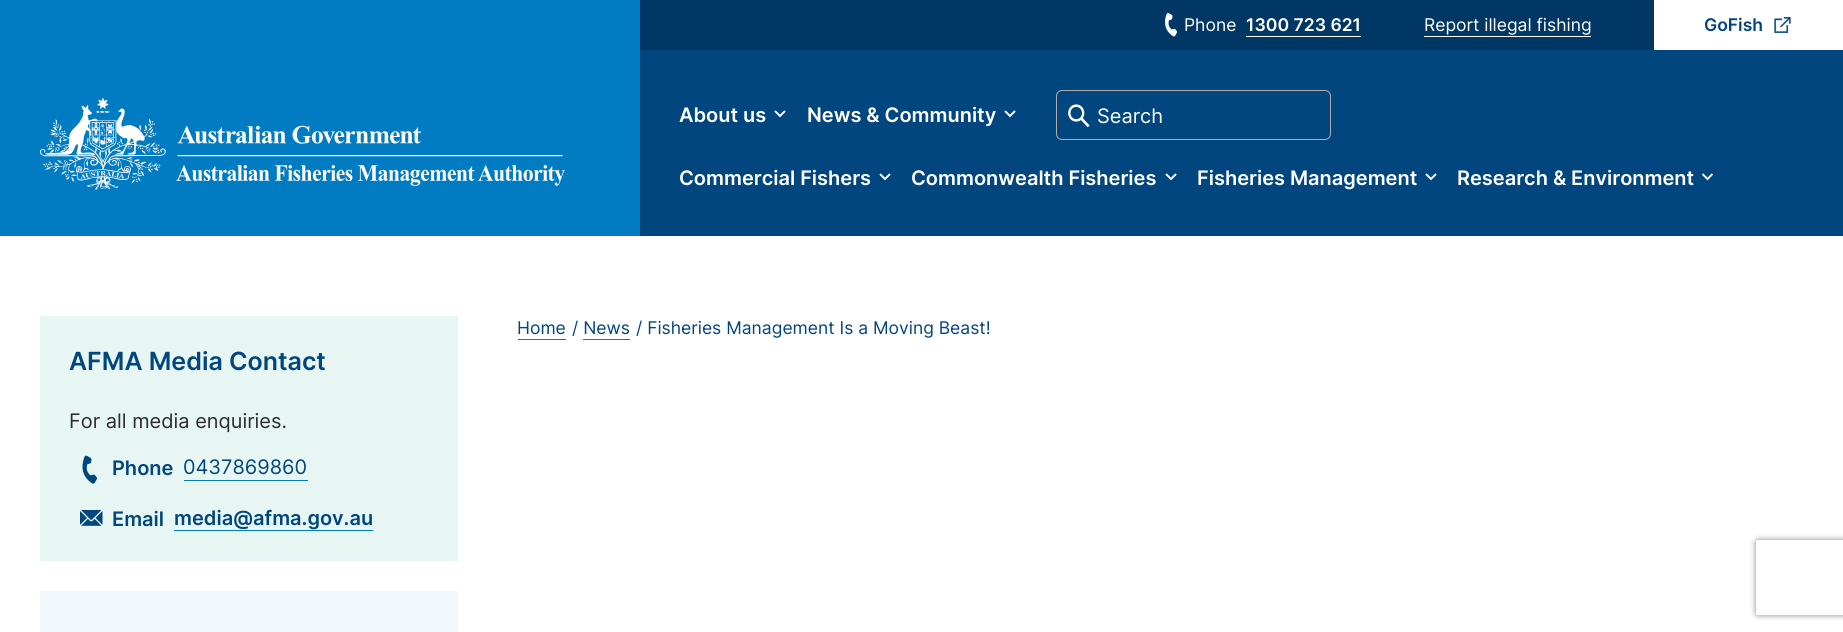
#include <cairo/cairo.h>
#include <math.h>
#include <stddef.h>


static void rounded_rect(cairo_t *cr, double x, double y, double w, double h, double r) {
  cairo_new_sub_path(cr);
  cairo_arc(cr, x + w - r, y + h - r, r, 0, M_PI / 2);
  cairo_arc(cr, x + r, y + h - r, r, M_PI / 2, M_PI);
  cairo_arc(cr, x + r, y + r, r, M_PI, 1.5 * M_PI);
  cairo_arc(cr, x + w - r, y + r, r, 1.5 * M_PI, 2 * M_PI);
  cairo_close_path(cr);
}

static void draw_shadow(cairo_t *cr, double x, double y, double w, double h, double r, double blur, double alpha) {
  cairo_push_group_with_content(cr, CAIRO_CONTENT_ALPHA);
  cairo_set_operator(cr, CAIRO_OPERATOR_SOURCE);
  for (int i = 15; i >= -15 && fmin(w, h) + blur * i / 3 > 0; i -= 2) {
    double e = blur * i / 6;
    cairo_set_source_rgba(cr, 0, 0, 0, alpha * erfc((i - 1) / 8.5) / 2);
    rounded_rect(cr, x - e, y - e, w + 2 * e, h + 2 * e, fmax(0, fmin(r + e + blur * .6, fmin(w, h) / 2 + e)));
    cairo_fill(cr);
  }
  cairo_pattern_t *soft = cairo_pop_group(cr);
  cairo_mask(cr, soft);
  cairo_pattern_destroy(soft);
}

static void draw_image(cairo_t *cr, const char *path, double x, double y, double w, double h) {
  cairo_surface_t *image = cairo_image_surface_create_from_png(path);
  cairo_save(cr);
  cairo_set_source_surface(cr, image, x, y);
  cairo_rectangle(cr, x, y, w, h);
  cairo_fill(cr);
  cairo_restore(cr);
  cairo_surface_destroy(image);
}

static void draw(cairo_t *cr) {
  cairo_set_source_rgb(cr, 1, 1, 1);
  cairo_paint(cr);
  cairo_set_source_rgb(cr, 1 / 255.0, 123 / 255.0, 193 / 255.0);
  cairo_rectangle(cr, 0, 0, 640, 236);
  cairo_fill(cr);
  draw_image(cr, "images/1.png", 40, 97, 525, 93);
  cairo_set_source_rgb(cr, 0, 55 / 255.0, 100 / 255.0);
  cairo_rectangle(cr, 640, 0, 1014, 50);
  cairo_fill(cr);
  draw_image(cr, "images/2.png", 1165, 13, 12, 24);
  cairo_set_source_rgb(cr, 1, 1, 1);
  cairo_rectangle(cr, 1246, 36, 115, 1);
  cairo_fill(cr);
  cairo_rectangle(cr, 1424, 36, 167, 1);
  cairo_fill(cr);
  draw_image(cr, "images/3.png", 1774, 17, 17, 17);
  cairo_set_source_rgb(cr, 1 / 255.0, 70 / 255.0, 127 / 255.0);
  cairo_rectangle(cr, 640, 50, 1203, 186);
  cairo_fill(cr);
  cairo_new_path(cr);
  cairo_move_to(cr, 775, 111);
  cairo_line_to(cr, 780, 116);
  cairo_line_to(cr, 785, 111);
  cairo_set_source_rgb(cr, 1, 1, 1);
  cairo_set_line_width(cr, 1.9);
  cairo_stroke(cr);
  cairo_new_path(cr);
  cairo_move_to(cr, 1005, 111);
  cairo_line_to(cr, 1010, 116);
  cairo_line_to(cr, 1015, 111);
  cairo_stroke(cr);
  draw_image(cr, "images/4.png", 1068, 104, 22, 24);
  rounded_rect(cr, 1056.5, 90.5, 274, 49, 5.5);
  cairo_set_source_rgb(cr, 173 / 255.0, 173 / 255.0, 173 / 255.0);
  cairo_set_line_width(cr, 1);
  cairo_stroke(cr);
  cairo_new_path(cr);
  cairo_move_to(cr, 880, 174);
  cairo_line_to(cr, 885, 179);
  cairo_line_to(cr, 890, 174);
  cairo_set_source_rgb(cr, 1, 1, 1);
  cairo_set_line_width(cr, 1.9);
  cairo_stroke(cr);
  cairo_new_path(cr);
  cairo_move_to(cr, 1166, 174);
  cairo_line_to(cr, 1171, 179);
  cairo_line_to(cr, 1176, 174);
  cairo_stroke(cr);
  cairo_new_path(cr);
  cairo_move_to(cr, 1426, 174);
  cairo_line_to(cr, 1431, 179);
  cairo_line_to(cr, 1436, 174);
  cairo_stroke(cr);
  cairo_new_path(cr);
  cairo_move_to(cr, 1702.5, 174);
  cairo_line_to(cr, 1707.5, 179);
  cairo_line_to(cr, 1712.5, 174);
  cairo_stroke(cr);
  cairo_set_source_rgb(cr, 1 / 255.0, 123 / 255.0, 193 / 255.0);
  cairo_rectangle(cr, 518, 339, 48, 1);
  cairo_fill(cr);
  cairo_rectangle(cr, 583, 339, 47, 1);
  cairo_fill(cr);
  cairo_set_source_rgb(cr, 231 / 255.0, 246 / 255.0, 242 / 255.0);
  cairo_rectangle(cr, 40, 316, 418, 245);
  cairo_fill(cr);
  draw_image(cr, "images/5.png", 82, 455, 15, 29);
  cairo_set_source_rgb(cr, 1 / 255.0, 123 / 255.0, 193 / 255.0);
  cairo_rectangle(cr, 184, 480, 124, 1);
  cairo_fill(cr);
  draw_image(cr, "images/6.png", 80, 510, 23, 16);
  cairo_rectangle(cr, 174, 530, 199, 1);
  cairo_fill(cr);
  cairo_set_source_rgb(cr, 242 / 255.0, 248 / 255.0, 252 / 255.0);
  cairo_rectangle(cr, 40, 591, 418, 41);
  cairo_fill(cr);
  cairo_save(cr);
  cairo_set_fill_rule(cr, CAIRO_FILL_RULE_EVEN_ODD);
  cairo_new_path(cr);
  cairo_move_to(cr, 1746, 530);
  cairo_line_to(cr, 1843, 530);
  cairo_line_to(cr, 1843, 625);
  cairo_line_to(cr, 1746, 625);
  cairo_close_path(cr);
  cairo_move_to(cr, 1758.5, 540);
  cairo_line_to(cr, 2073.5, 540);
  cairo_curve_to(cr, 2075, 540, 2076, 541, 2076, 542.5);
  cairo_line_to(cr, 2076, 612.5);
  cairo_curve_to(cr, 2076, 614, 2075, 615, 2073.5, 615);
  cairo_line_to(cr, 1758.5, 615);
  cairo_curve_to(cr, 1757, 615, 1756, 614, 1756, 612.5);
  cairo_line_to(cr, 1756, 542.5);
  cairo_curve_to(cr, 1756, 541, 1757, 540, 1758.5, 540);
  cairo_close_path(cr);
  cairo_clip(cr);
  cairo_set_source_rgb(cr, 128 / 255.0, 128 / 255.0, 128 / 255.0);
  draw_shadow(cr, 1756, 540, 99, 75, 2.5, 3, 1);
  cairo_restore(cr);
  cairo_select_font_face(cr, "Inter", CAIRO_FONT_SLANT_NORMAL, CAIRO_FONT_WEIGHT_NORMAL);
  cairo_set_font_size(cr, 17.5);
  cairo_set_source_rgb(cr, 1, 1, 1);
  cairo_move_to(cr, 1184, 31);
  cairo_show_text(cr, "Phone");
  cairo_select_font_face(cr, "Inter SemiBold", CAIRO_FONT_SLANT_NORMAL, CAIRO_FONT_WEIGHT_NORMAL);
  cairo_move_to(cr, 1246, 31);
  cairo_show_text(cr, "1300 723 621");
  cairo_select_font_face(cr, "Inter", CAIRO_FONT_SLANT_NORMAL, CAIRO_FONT_WEIGHT_NORMAL);
  cairo_move_to(cr, 1424, 31);
  cairo_show_text(cr, "Report illegal fishing");
  cairo_select_font_face(cr, "Inter SemiBold", CAIRO_FONT_SLANT_NORMAL, CAIRO_FONT_WEIGHT_NORMAL);
  cairo_set_source_rgb(cr, 1 / 255.0, 70 / 255.0, 127 / 255.0);
  cairo_move_to(cr, 1704, 31);
  cairo_show_text(cr, "GoFish");
  cairo_set_font_size(cr, 20);
  cairo_set_source_rgb(cr, 1, 1, 1);
  cairo_move_to(cr, 679, 122);
  cairo_show_text(cr, "About us");
  cairo_move_to(cr, 807, 122);
  cairo_show_text(cr, "News & Community");
  cairo_select_font_face(cr, "Inter", CAIRO_FONT_SLANT_NORMAL, CAIRO_FONT_WEIGHT_NORMAL);
  cairo_move_to(cr, 1097, 123);
  cairo_show_text(cr, "Search");
  cairo_select_font_face(cr, "Inter SemiBold", CAIRO_FONT_SLANT_NORMAL, CAIRO_FONT_WEIGHT_NORMAL);
  cairo_move_to(cr, 679, 185);
  cairo_show_text(cr, "Commercial Fishers");
  cairo_move_to(cr, 911, 185);
  cairo_show_text(cr, "Commonwealth Fisheries");
  cairo_move_to(cr, 1197, 185);
  cairo_show_text(cr, "Fisheries Management");
  cairo_move_to(cr, 1457, 185);
  cairo_show_text(cr, "Research & Environment");
  cairo_select_font_face(cr, "Inter", CAIRO_FONT_SLANT_NORMAL, CAIRO_FONT_WEIGHT_NORMAL);
  cairo_set_font_size(cr, 17.5);
  cairo_set_source_rgb(cr, 1 / 255.0, 70 / 255.0, 127 / 255.0);
  cairo_move_to(cr, 517, 334);
  cairo_show_text(cr, "Home");
  cairo_move_to(cr, 572, 334);
  cairo_show_text(cr, "/ News");
  cairo_move_to(cr, 636, 334);
  cairo_show_text(cr, "/ Fisheries Management Is a Moving Beast!");
  cairo_select_font_face(cr, "Inter SemiBold", CAIRO_FONT_SLANT_NORMAL, CAIRO_FONT_WEIGHT_NORMAL);
  cairo_set_font_size(cr, 25);
  cairo_move_to(cr, 69, 370);
  cairo_show_text(cr, "AFMA Media Contact");
  cairo_select_font_face(cr, "Inter", CAIRO_FONT_SLANT_NORMAL, CAIRO_FONT_WEIGHT_NORMAL);
  cairo_set_font_size(cr, 20);
  cairo_set_source_rgb(cr, 44 / 255.0, 44 / 255.0, 44 / 255.0);
  cairo_move_to(cr, 69, 428);
  cairo_show_text(cr, "For all media enquiries.");
  cairo_select_font_face(cr, "Inter SemiBold", CAIRO_FONT_SLANT_NORMAL, CAIRO_FONT_WEIGHT_NORMAL);
  cairo_set_source_rgb(cr, 1 / 255.0, 70 / 255.0, 127 / 255.0);
  cairo_move_to(cr, 112, 475);
  cairo_show_text(cr, "Phone");
  cairo_select_font_face(cr, "Inter", CAIRO_FONT_SLANT_NORMAL, CAIRO_FONT_WEIGHT_NORMAL);
  cairo_move_to(cr, 183, 474);
  cairo_show_text(cr, "0437869860");
  cairo_select_font_face(cr, "Inter SemiBold", CAIRO_FONT_SLANT_NORMAL, CAIRO_FONT_WEIGHT_NORMAL);
  cairo_move_to(cr, 112, 526);
  cairo_show_text(cr, "Email");
  cairo_move_to(cr, 174, 525);
  cairo_show_text(cr, "media@afma.gov.au");
}

int main(void) {
  cairo_surface_t *surface = cairo_image_surface_create(CAIRO_FORMAT_RGB24, 1843, 632);
  cairo_t *cr = cairo_create(surface);
  cairo_font_options_t *options = cairo_font_options_create();
  cairo_font_options_set_hint_metrics(options, CAIRO_HINT_METRICS_OFF);
  cairo_font_options_set_hint_style(options, CAIRO_HINT_STYLE_NONE);
  cairo_set_font_options(cr, options);
  cairo_set_miter_limit(cr, 4);
  draw(cr);
  cairo_surface_write_to_png(surface, "out.png");
  cairo_font_options_destroy(options);
  cairo_destroy(cr);
  cairo_surface_destroy(surface);
  return 0;
}
